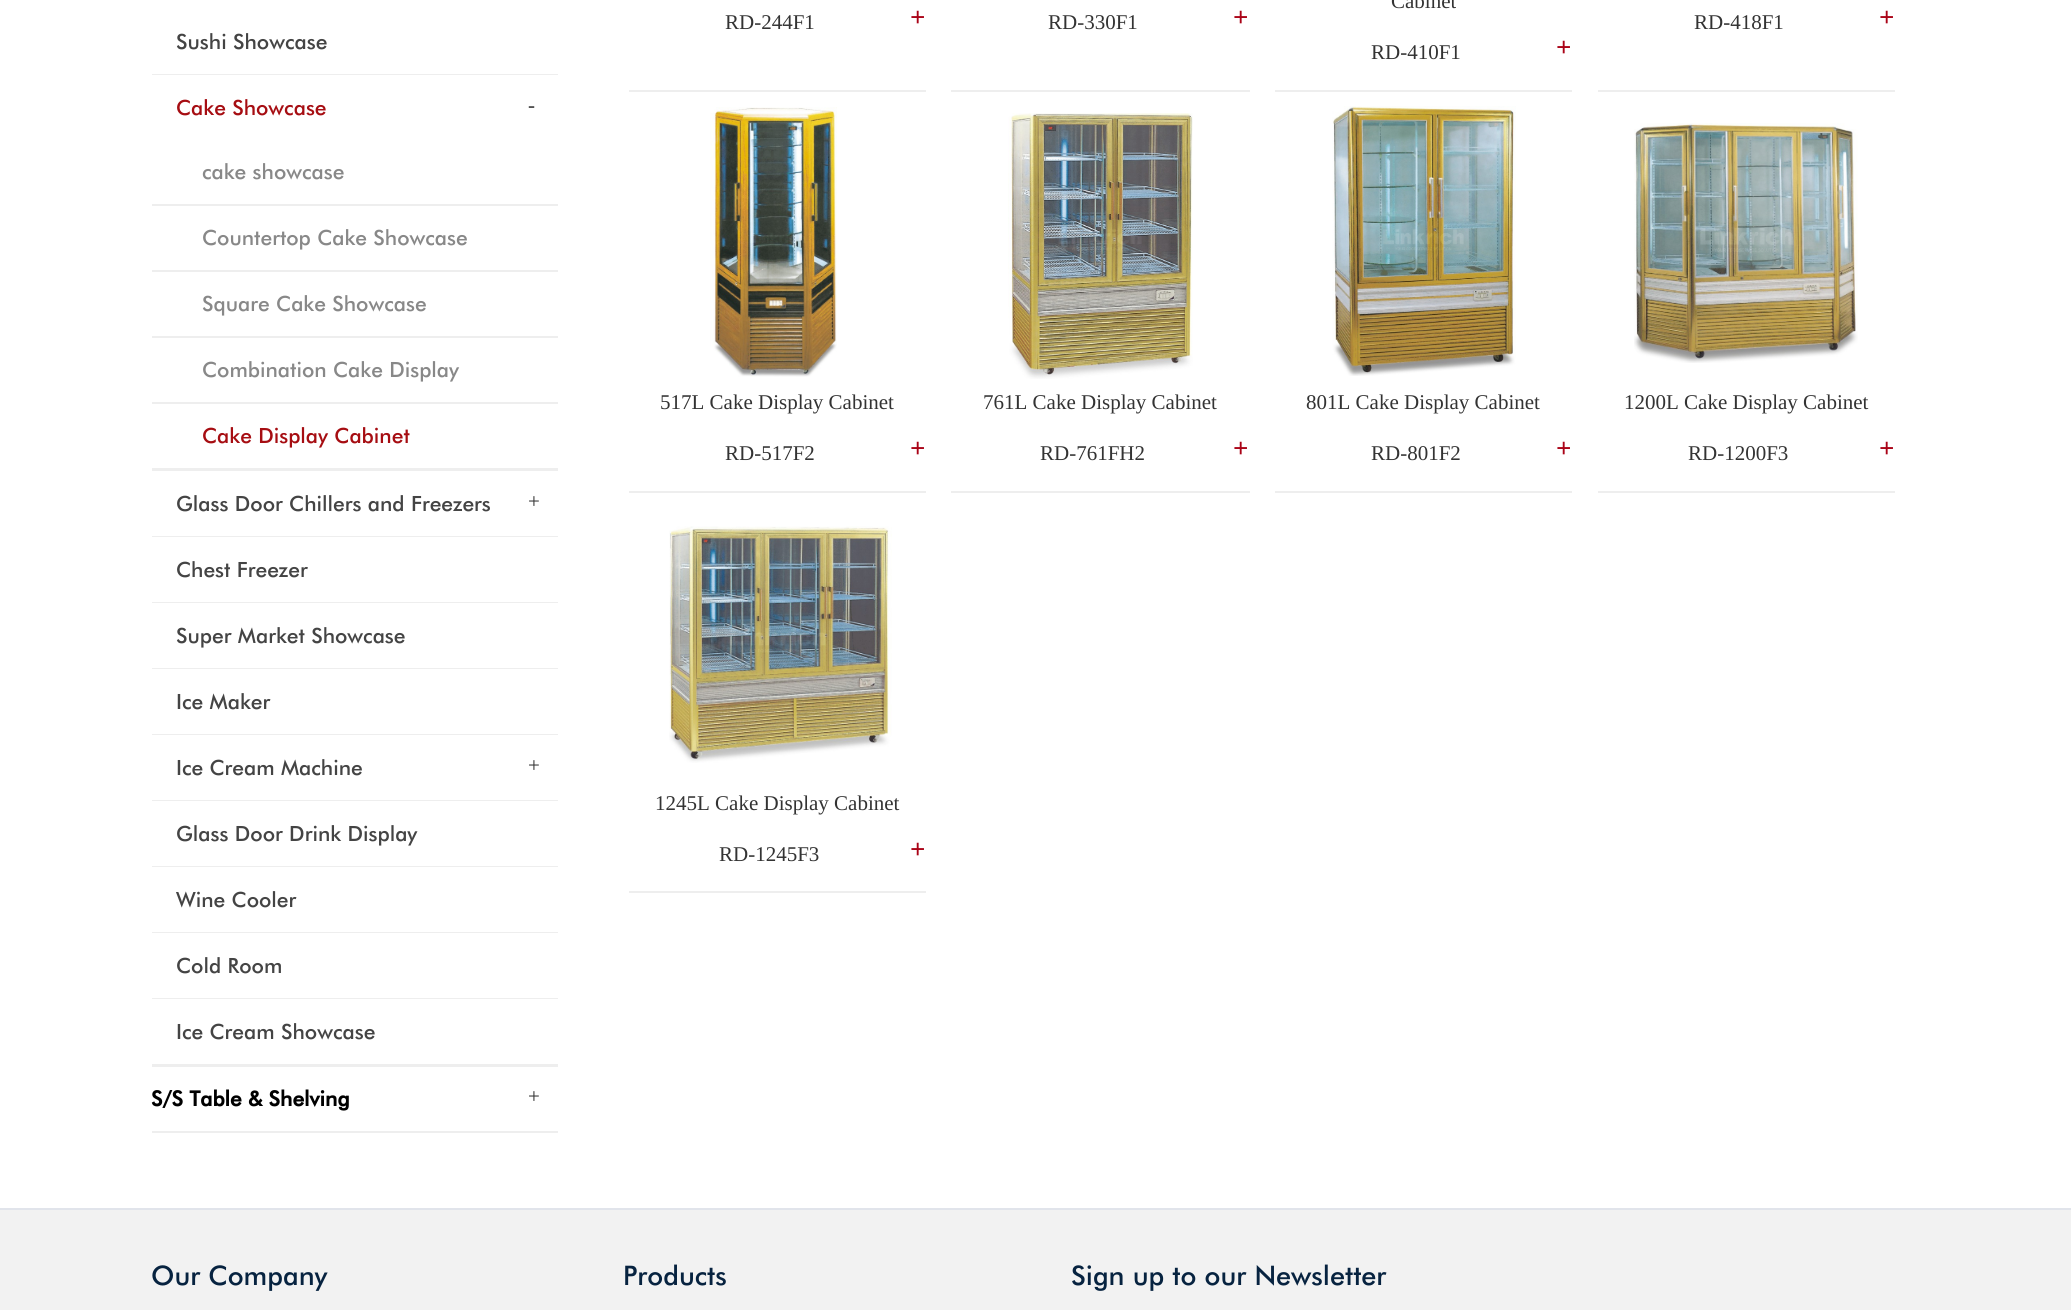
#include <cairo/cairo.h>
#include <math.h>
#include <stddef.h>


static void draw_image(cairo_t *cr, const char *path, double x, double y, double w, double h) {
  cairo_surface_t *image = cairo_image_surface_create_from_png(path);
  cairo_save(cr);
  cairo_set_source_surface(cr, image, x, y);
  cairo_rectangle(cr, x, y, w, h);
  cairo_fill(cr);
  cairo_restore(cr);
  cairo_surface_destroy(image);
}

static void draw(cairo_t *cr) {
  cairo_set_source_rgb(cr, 1, 1, 1);
  cairo_paint(cr);
  cairo_set_source_rgb(cr, 238 / 255.0, 238 / 255.0, 238 / 255.0);
  cairo_rectangle(cr, 152, 1064, 406, 3);
  cairo_fill(cr);
  cairo_rectangle(cr, 152, 74, 406, 1);
  cairo_fill(cr);
  cairo_rectangle(cr, 152, 468, 406, 3);
  cairo_fill(cr);
  cairo_rectangle(cr, 152, 204, 406, 2);
  cairo_fill(cr);
  cairo_rectangle(cr, 152, 270, 406, 2);
  cairo_fill(cr);
  cairo_rectangle(cr, 152, 336, 406, 2);
  cairo_fill(cr);
  cairo_rectangle(cr, 152, 402, 406, 2);
  cairo_fill(cr);
  cairo_rectangle(cr, 152, 536, 406, 1);
  cairo_fill(cr);
  cairo_rectangle(cr, 152, 602, 406, 1);
  cairo_fill(cr);
  cairo_rectangle(cr, 152, 668, 406, 1);
  cairo_fill(cr);
  cairo_rectangle(cr, 152, 734, 406, 1);
  cairo_fill(cr);
  cairo_rectangle(cr, 152, 800, 406, 1);
  cairo_fill(cr);
  cairo_rectangle(cr, 152, 866, 406, 1);
  cairo_fill(cr);
  cairo_rectangle(cr, 152, 932, 406, 1);
  cairo_fill(cr);
  cairo_rectangle(cr, 152, 998, 406, 1);
  cairo_fill(cr);
  cairo_rectangle(cr, 152, 1131, 406, 2);
  cairo_fill(cr);
  cairo_rectangle(cr, 629, 90, 297, 2);
  cairo_fill(cr);
  cairo_rectangle(cr, 951, 90, 299, 2);
  cairo_fill(cr);
  cairo_rectangle(cr, 1275, 90, 297, 2);
  cairo_fill(cr);
  cairo_rectangle(cr, 1598, 90, 297, 2);
  cairo_fill(cr);
  cairo_rectangle(cr, 629, 491, 297, 2);
  cairo_fill(cr);
  draw_image(cr, "images/1.png", 710, 107, 127, 270);
  cairo_rectangle(cr, 951, 491, 299, 2);
  cairo_fill(cr);
  draw_image(cr, "images/2.png", 1008, 113, 185, 266);
  cairo_rectangle(cr, 1275, 491, 297, 2);
  cairo_fill(cr);
  draw_image(cr, "images/3.png", 1332, 106, 184, 270);
  cairo_rectangle(cr, 1598, 491, 297, 2);
  cairo_fill(cr);
  draw_image(cr, "images/4.png", 1634, 123, 224, 240);
  cairo_rectangle(cr, 629, 891, 297, 2);
  cairo_fill(cr);
  draw_image(cr, "images/5.png", 669, 526, 223, 237);
  cairo_set_source_rgb(cr, 242 / 255.0, 242 / 255.0, 242 / 255.0);
  cairo_rectangle(cr, 0, 1210, 2071, 100);
  cairo_fill(cr);
  cairo_set_source_rgb(cr, 225 / 255.0, 228 / 255.0, 235 / 255.0);
  cairo_rectangle(cr, 0, 1208, 2071, 2);
  cairo_fill(cr);
  cairo_select_font_face(cr, "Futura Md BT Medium", CAIRO_FONT_SLANT_NORMAL, CAIRO_FONT_WEIGHT_NORMAL);
  cairo_set_font_size(cr, 21);
  cairo_set_source_rgb(cr, 68 / 255.0, 68 / 255.0, 68 / 255.0);
  cairo_move_to(cr, 176, 49);
  cairo_show_text(cr, "Sushi Showcase");
  cairo_set_source_rgb(cr, 166 / 255.0, 13 / 255.0, 18 / 255.0);
  cairo_move_to(cr, 176, 115);
  cairo_show_text(cr, "Cake Showcase");
  cairo_select_font_face(cr, "Liberation Serif", CAIRO_FONT_SLANT_NORMAL, CAIRO_FONT_WEIGHT_NORMAL);
  cairo_set_source_rgb(cr, 51 / 255.0, 51 / 255.0, 51 / 255.0);
  cairo_move_to(cr, 528, 112);
  cairo_show_text(cr, "-");
  cairo_select_font_face(cr, "Futura Md BT Medium", CAIRO_FONT_SLANT_NORMAL, CAIRO_FONT_WEIGHT_NORMAL);
  cairo_set_source_rgb(cr, 136 / 255.0, 136 / 255.0, 136 / 255.0);
  cairo_move_to(cr, 202, 179);
  cairo_show_text(cr, "cake showcase");
  cairo_move_to(cr, 202, 245);
  cairo_show_text(cr, "Countertop Cake Showcase");
  cairo_move_to(cr, 202, 311);
  cairo_show_text(cr, "Square Cake Showcase");
  cairo_move_to(cr, 202, 377);
  cairo_show_text(cr, "Combination Cake Display");
  cairo_set_source_rgb(cr, 166 / 255.0, 13 / 255.0, 18 / 255.0);
  cairo_move_to(cr, 202, 443);
  cairo_show_text(cr, "Cake Display Cabinet");
  cairo_set_source_rgb(cr, 68 / 255.0, 68 / 255.0, 68 / 255.0);
  cairo_move_to(cr, 176, 511);
  cairo_show_text(cr, "Glass Door Chillers and Freezers");
  cairo_select_font_face(cr, "Liberation Serif", CAIRO_FONT_SLANT_NORMAL, CAIRO_FONT_WEIGHT_NORMAL);
  cairo_set_source_rgb(cr, 51 / 255.0, 51 / 255.0, 51 / 255.0);
  cairo_move_to(cr, 528, 508);
  cairo_show_text(cr, "+");
  cairo_select_font_face(cr, "Futura Md BT Medium", CAIRO_FONT_SLANT_NORMAL, CAIRO_FONT_WEIGHT_NORMAL);
  cairo_set_source_rgb(cr, 68 / 255.0, 68 / 255.0, 68 / 255.0);
  cairo_move_to(cr, 176, 577);
  cairo_show_text(cr, "Chest Freezer");
  cairo_move_to(cr, 176, 643);
  cairo_show_text(cr, "Super Market Showcase");
  cairo_move_to(cr, 176, 709);
  cairo_show_text(cr, "Ice Maker");
  cairo_move_to(cr, 176, 775);
  cairo_show_text(cr, "Ice Cream Machine");
  cairo_select_font_face(cr, "Liberation Serif", CAIRO_FONT_SLANT_NORMAL, CAIRO_FONT_WEIGHT_NORMAL);
  cairo_set_source_rgb(cr, 51 / 255.0, 51 / 255.0, 51 / 255.0);
  cairo_move_to(cr, 528, 772);
  cairo_show_text(cr, "+");
  cairo_select_font_face(cr, "Futura Md BT Medium", CAIRO_FONT_SLANT_NORMAL, CAIRO_FONT_WEIGHT_NORMAL);
  cairo_set_source_rgb(cr, 68 / 255.0, 68 / 255.0, 68 / 255.0);
  cairo_move_to(cr, 176, 841);
  cairo_show_text(cr, "Glass Door Drink Display");
  cairo_move_to(cr, 176, 907);
  cairo_show_text(cr, "Wine Cooler");
  cairo_move_to(cr, 176, 973);
  cairo_show_text(cr, "Cold Room");
  cairo_move_to(cr, 176, 1039);
  cairo_show_text(cr, "Ice Cream Showcase");
  cairo_select_font_face(cr, "Futura Md BT", CAIRO_FONT_SLANT_NORMAL, CAIRO_FONT_WEIGHT_BOLD);
  cairo_set_source_rgb(cr, 0, 0, 0);
  cairo_move_to(cr, 151, 1106);
  cairo_show_text(cr, "S/S Table & Shelving");
  cairo_select_font_face(cr, "Liberation Serif", CAIRO_FONT_SLANT_NORMAL, CAIRO_FONT_WEIGHT_NORMAL);
  cairo_set_source_rgb(cr, 51 / 255.0, 51 / 255.0, 51 / 255.0);
  cairo_move_to(cr, 528, 1103);
  cairo_show_text(cr, "+");
  cairo_move_to(cr, 725, 29);
  cairo_show_text(cr, "RD-244F1");
  cairo_select_font_face(cr, "Liberation Serif", CAIRO_FONT_SLANT_NORMAL, CAIRO_FONT_WEIGHT_BOLD);
  cairo_set_font_size(cr, 27);
  cairo_set_source_rgb(cr, 170 / 255.0, 3 / 255.0, 23 / 255.0);
  cairo_move_to(cr, 910, 26);
  cairo_show_text(cr, "+");
  cairo_select_font_face(cr, "Liberation Serif", CAIRO_FONT_SLANT_NORMAL, CAIRO_FONT_WEIGHT_NORMAL);
  cairo_set_font_size(cr, 21);
  cairo_set_source_rgb(cr, 51 / 255.0, 51 / 255.0, 51 / 255.0);
  cairo_move_to(cr, 1048, 29);
  cairo_show_text(cr, "RD-330F1");
  cairo_select_font_face(cr, "Liberation Serif", CAIRO_FONT_SLANT_NORMAL, CAIRO_FONT_WEIGHT_BOLD);
  cairo_set_font_size(cr, 27);
  cairo_set_source_rgb(cr, 170 / 255.0, 3 / 255.0, 23 / 255.0);
  cairo_move_to(cr, 1233, 26);
  cairo_show_text(cr, "+");
  cairo_select_font_face(cr, "Liberation Serif", CAIRO_FONT_SLANT_NORMAL, CAIRO_FONT_WEIGHT_NORMAL);
  cairo_set_font_size(cr, 21);
  cairo_set_source_rgb(cr, 51 / 255.0, 51 / 255.0, 51 / 255.0);
  cairo_move_to(cr, 1391, 8);
  cairo_show_text(cr, "Cabinet");
  cairo_move_to(cr, 1371, 59);
  cairo_show_text(cr, "RD-410F1");
  cairo_select_font_face(cr, "Liberation Serif", CAIRO_FONT_SLANT_NORMAL, CAIRO_FONT_WEIGHT_BOLD);
  cairo_set_font_size(cr, 27);
  cairo_set_source_rgb(cr, 170 / 255.0, 3 / 255.0, 23 / 255.0);
  cairo_move_to(cr, 1556, 56);
  cairo_show_text(cr, "+");
  cairo_select_font_face(cr, "Liberation Serif", CAIRO_FONT_SLANT_NORMAL, CAIRO_FONT_WEIGHT_NORMAL);
  cairo_set_font_size(cr, 21);
  cairo_set_source_rgb(cr, 51 / 255.0, 51 / 255.0, 51 / 255.0);
  cairo_move_to(cr, 1694, 29);
  cairo_show_text(cr, "RD-418F1");
  cairo_select_font_face(cr, "Liberation Serif", CAIRO_FONT_SLANT_NORMAL, CAIRO_FONT_WEIGHT_BOLD);
  cairo_set_font_size(cr, 27);
  cairo_set_source_rgb(cr, 170 / 255.0, 3 / 255.0, 23 / 255.0);
  cairo_move_to(cr, 1879, 26);
  cairo_show_text(cr, "+");
  cairo_select_font_face(cr, "Liberation Serif", CAIRO_FONT_SLANT_NORMAL, CAIRO_FONT_WEIGHT_NORMAL);
  cairo_set_font_size(cr, 21);
  cairo_set_source_rgb(cr, 51 / 255.0, 51 / 255.0, 51 / 255.0);
  cairo_move_to(cr, 660, 409);
  cairo_show_text(cr, "517L Cake Display Cabinet");
  cairo_move_to(cr, 725, 460);
  cairo_show_text(cr, "RD-517F2");
  cairo_select_font_face(cr, "Liberation Serif", CAIRO_FONT_SLANT_NORMAL, CAIRO_FONT_WEIGHT_BOLD);
  cairo_set_font_size(cr, 27);
  cairo_set_source_rgb(cr, 170 / 255.0, 3 / 255.0, 23 / 255.0);
  cairo_move_to(cr, 910, 457);
  cairo_show_text(cr, "+");
  cairo_select_font_face(cr, "Liberation Serif", CAIRO_FONT_SLANT_NORMAL, CAIRO_FONT_WEIGHT_NORMAL);
  cairo_set_font_size(cr, 21);
  cairo_set_source_rgb(cr, 51 / 255.0, 51 / 255.0, 51 / 255.0);
  cairo_move_to(cr, 983, 409);
  cairo_show_text(cr, "761L Cake Display Cabinet");
  cairo_move_to(cr, 1040, 460);
  cairo_show_text(cr, "RD-761FH2");
  cairo_select_font_face(cr, "Liberation Serif", CAIRO_FONT_SLANT_NORMAL, CAIRO_FONT_WEIGHT_BOLD);
  cairo_set_font_size(cr, 27);
  cairo_set_source_rgb(cr, 170 / 255.0, 3 / 255.0, 23 / 255.0);
  cairo_move_to(cr, 1233, 457);
  cairo_show_text(cr, "+");
  cairo_select_font_face(cr, "Liberation Serif", CAIRO_FONT_SLANT_NORMAL, CAIRO_FONT_WEIGHT_NORMAL);
  cairo_set_font_size(cr, 21);
  cairo_set_source_rgb(cr, 51 / 255.0, 51 / 255.0, 51 / 255.0);
  cairo_move_to(cr, 1306, 409);
  cairo_show_text(cr, "801L Cake Display Cabinet");
  cairo_move_to(cr, 1371, 460);
  cairo_show_text(cr, "RD-801F2");
  cairo_select_font_face(cr, "Liberation Serif", CAIRO_FONT_SLANT_NORMAL, CAIRO_FONT_WEIGHT_BOLD);
  cairo_set_font_size(cr, 27);
  cairo_set_source_rgb(cr, 170 / 255.0, 3 / 255.0, 23 / 255.0);
  cairo_move_to(cr, 1556, 457);
  cairo_show_text(cr, "+");
  cairo_select_font_face(cr, "Liberation Serif", CAIRO_FONT_SLANT_NORMAL, CAIRO_FONT_WEIGHT_NORMAL);
  cairo_set_font_size(cr, 21);
  cairo_set_source_rgb(cr, 51 / 255.0, 51 / 255.0, 51 / 255.0);
  cairo_move_to(cr, 1624, 409);
  cairo_show_text(cr, "1200L Cake Display Cabinet");
  cairo_move_to(cr, 1688, 460);
  cairo_show_text(cr, "RD-1200F3");
  cairo_select_font_face(cr, "Liberation Serif", CAIRO_FONT_SLANT_NORMAL, CAIRO_FONT_WEIGHT_BOLD);
  cairo_set_font_size(cr, 27);
  cairo_set_source_rgb(cr, 170 / 255.0, 3 / 255.0, 23 / 255.0);
  cairo_move_to(cr, 1879, 457);
  cairo_show_text(cr, "+");
  cairo_select_font_face(cr, "Liberation Serif", CAIRO_FONT_SLANT_NORMAL, CAIRO_FONT_WEIGHT_NORMAL);
  cairo_set_font_size(cr, 21);
  cairo_set_source_rgb(cr, 51 / 255.0, 51 / 255.0, 51 / 255.0);
  cairo_move_to(cr, 655, 810);
  cairo_show_text(cr, "1245L Cake Display Cabinet");
  cairo_move_to(cr, 719, 861);
  cairo_show_text(cr, "RD-1245F3");
  cairo_select_font_face(cr, "Liberation Serif", CAIRO_FONT_SLANT_NORMAL, CAIRO_FONT_WEIGHT_BOLD);
  cairo_set_font_size(cr, 27);
  cairo_set_source_rgb(cr, 170 / 255.0, 3 / 255.0, 23 / 255.0);
  cairo_move_to(cr, 910, 858);
  cairo_show_text(cr, "+");
  cairo_select_font_face(cr, "Futura Md BT Medium", CAIRO_FONT_SLANT_NORMAL, CAIRO_FONT_WEIGHT_NORMAL);
  cairo_set_source_rgb(cr, 7 / 255.0, 35 / 255.0, 64 / 255.0);
  cairo_move_to(cr, 151, 1285);
  cairo_show_text(cr, "Our Company");
  cairo_move_to(cr, 623, 1285);
  cairo_show_text(cr, "Products");
  cairo_move_to(cr, 1071, 1285);
  cairo_show_text(cr, "Sign up to our Newsletter");
}

int main(void) {
  cairo_surface_t *surface = cairo_image_surface_create(CAIRO_FORMAT_RGB24, 2071, 1310);
  cairo_t *cr = cairo_create(surface);
  cairo_font_options_t *options = cairo_font_options_create();
  cairo_font_options_set_hint_metrics(options, CAIRO_HINT_METRICS_OFF);
  cairo_font_options_set_hint_style(options, CAIRO_HINT_STYLE_NONE);
  cairo_set_font_options(cr, options);
  cairo_set_miter_limit(cr, 4);
  draw(cr);
  cairo_surface_write_to_png(surface, "out.png");
  cairo_font_options_destroy(options);
  cairo_destroy(cr);
  cairo_surface_destroy(surface);
  return 0;
}
